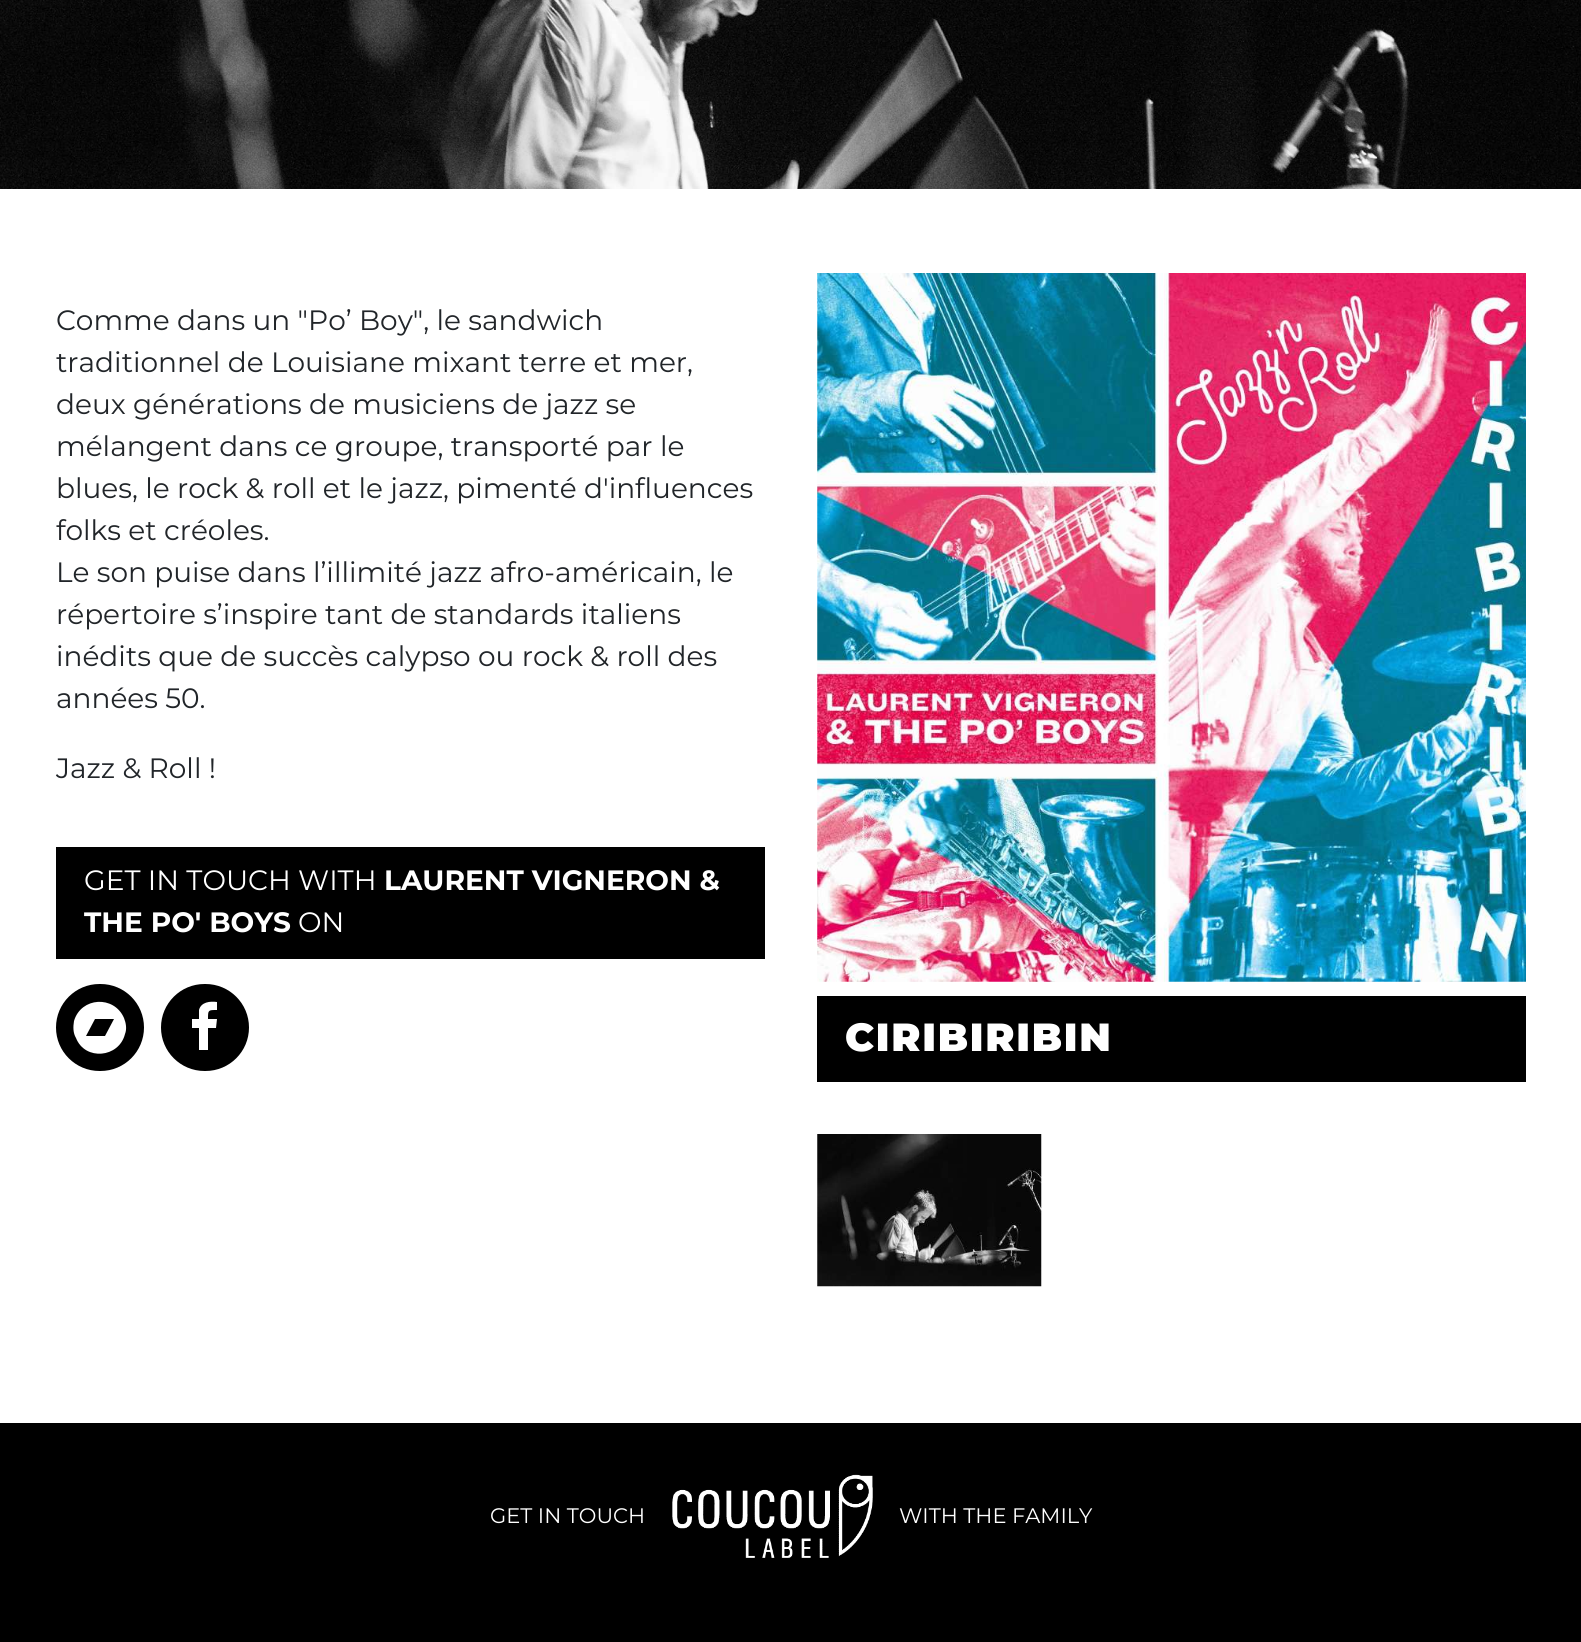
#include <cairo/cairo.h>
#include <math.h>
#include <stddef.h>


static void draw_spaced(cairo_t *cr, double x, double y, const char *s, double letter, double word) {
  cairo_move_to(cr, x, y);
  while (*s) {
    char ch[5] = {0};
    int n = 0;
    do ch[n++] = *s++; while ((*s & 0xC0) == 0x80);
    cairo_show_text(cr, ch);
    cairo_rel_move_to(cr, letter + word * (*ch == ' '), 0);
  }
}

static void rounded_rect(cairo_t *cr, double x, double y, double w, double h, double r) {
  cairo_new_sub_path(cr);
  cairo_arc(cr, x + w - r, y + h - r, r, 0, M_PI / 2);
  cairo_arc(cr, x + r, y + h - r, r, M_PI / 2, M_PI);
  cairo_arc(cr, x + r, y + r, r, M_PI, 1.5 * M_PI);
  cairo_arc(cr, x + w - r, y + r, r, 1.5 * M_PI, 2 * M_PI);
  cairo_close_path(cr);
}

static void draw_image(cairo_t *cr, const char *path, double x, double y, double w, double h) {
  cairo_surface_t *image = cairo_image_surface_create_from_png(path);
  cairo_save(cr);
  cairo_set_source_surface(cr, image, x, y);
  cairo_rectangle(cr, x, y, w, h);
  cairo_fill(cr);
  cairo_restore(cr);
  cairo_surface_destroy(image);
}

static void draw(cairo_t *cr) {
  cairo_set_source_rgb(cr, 1, 1, 1);
  cairo_paint(cr);
  draw_image(cr, "images/1.png", 0, 0, 1581, 189);
  cairo_set_source_rgb(cr, 0, 0, 0);
  cairo_rectangle(cr, 56, 847, 709, 112);
  cairo_fill(cr);
  rounded_rect(cr, 56, 984, 88, 87, 43.5);
  cairo_fill(cr);
  cairo_set_source_rgb(cr, 1, 1, 1);
  cairo_new_path(cr);
  cairo_move_to(cr, 105, 1036);
  cairo_line_to(cr, 114, 1019);
  cairo_line_to(cr, 95, 1019);
  cairo_line_to(cr, 86, 1036);
  cairo_close_path(cr);
  cairo_move_to(cr, 124, 1018);
  cairo_curve_to(cr, 126, 1023, 127, 1029, 125, 1034);
  cairo_curve_to(cr, 119, 1058, 85, 1061, 76, 1038);
  cairo_curve_to(cr, 73, 1033, 73, 1027, 74, 1021);
  cairo_curve_to(cr, 81, 997, 114, 995, 124, 1018);
  cairo_close_path(cr);
  cairo_fill(cr);
  cairo_set_source_rgb(cr, 0, 0, 0);
  rounded_rect(cr, 161, 984, 88, 87, 43.5);
  cairo_fill(cr);
  cairo_set_source_rgb(cr, 1, 1, 1);
  cairo_new_path(cr);
  cairo_move_to(cr, 217, 1002);
  cairo_line_to(cr, 217, 1010);
  cairo_curve_to(cr, 208, 1010, 208, 1010, 208, 1019);
  cairo_line_to(cr, 217, 1019);
  cairo_line_to(cr, 216, 1028);
  cairo_line_to(cr, 208, 1028);
  cairo_line_to(cr, 208, 1050);
  cairo_line_to(cr, 199, 1050);
  cairo_line_to(cr, 199, 1028);
  cairo_line_to(cr, 192, 1028);
  cairo_line_to(cr, 192, 1019);
  cairo_line_to(cr, 199, 1019);
  cairo_line_to(cr, 199, 1010);
  cairo_curve_to(cr, 201, 1002, 210, 1001, 217, 1002);
  cairo_close_path(cr);
  cairo_fill(cr);
  draw_image(cr, "images/2.png", 817, 273, 709, 709);
  cairo_set_source_rgb(cr, 0, 0, 0);
  cairo_rectangle(cr, 817, 996, 709, 86);
  cairo_fill(cr);
  draw_image(cr, "images/3.png", 817, 1134, 225, 153);
  cairo_rectangle(cr, 0, 1423, 1581, 219);
  cairo_fill(cr);
  draw_image(cr, "images/4.png", 672, 1474, 201, 84);
  cairo_select_font_face(cr, "Montserrat", CAIRO_FONT_SLANT_NORMAL, CAIRO_FONT_WEIGHT_NORMAL);
  cairo_set_font_size(cr, 28);
  cairo_set_source_rgb(cr, 33 / 255.0, 37 / 255.0, 41 / 255.0);
  cairo_move_to(cr, 56, 330);
  cairo_show_text(cr, "Comme dans un \"Po’ Boy\", le sandwich");
  cairo_move_to(cr, 56, 372);
  cairo_show_text(cr, "traditionnel de Louisiane mixant terre et mer,");
  cairo_move_to(cr, 56, 414);
  cairo_show_text(cr, "deux générations de musiciens de jazz se");
  cairo_move_to(cr, 56, 456);
  cairo_show_text(cr, "mélangent dans ce groupe, transporté par le");
  cairo_move_to(cr, 56, 498);
  cairo_show_text(cr, "blues, le rock & roll et le jazz, pimenté d'influences");
  cairo_move_to(cr, 56, 540);
  cairo_show_text(cr, "folks et créoles.");
  cairo_move_to(cr, 56, 582);
  cairo_show_text(cr, "Le son puise dans l’illimité jazz afro-américain, le");
  cairo_move_to(cr, 56, 624);
  cairo_show_text(cr, "répertoire s’inspire tant de standards italiens");
  cairo_move_to(cr, 56, 666);
  cairo_show_text(cr, "inédits que de succès calypso ou rock & roll des");
  cairo_move_to(cr, 56, 708);
  cairo_show_text(cr, "années 50.");
  cairo_move_to(cr, 56, 778);
  cairo_show_text(cr, "Jazz & Roll !");
  cairo_set_source_rgb(cr, 1, 1, 1);
  cairo_move_to(cr, 84, 890);
  cairo_show_text(cr, "GET IN TOUCH WITH");
  cairo_select_font_face(cr, "Montserrat", CAIRO_FONT_SLANT_NORMAL, CAIRO_FONT_WEIGHT_BOLD);
  cairo_move_to(cr, 384, 890);
  cairo_show_text(cr, "LAURENT VIGNERON &");
  cairo_move_to(cr, 84, 932);
  cairo_show_text(cr, "THE PO' BOYS");
  cairo_select_font_face(cr, "Montserrat", CAIRO_FONT_SLANT_NORMAL, CAIRO_FONT_WEIGHT_NORMAL);
  cairo_move_to(cr, 298, 932);
  cairo_show_text(cr, "ON");
  cairo_select_font_face(cr, "Montserrat Black", CAIRO_FONT_SLANT_NORMAL, CAIRO_FONT_WEIGHT_NORMAL);
  cairo_set_font_size(cr, 39.25);
  draw_spaced(cr, 845, 1051, "CIRIBIRIBIN", 1.75, 0);
  cairo_select_font_face(cr, "Montserrat", CAIRO_FONT_SLANT_NORMAL, CAIRO_FONT_WEIGHT_NORMAL);
  cairo_set_font_size(cr, 21);
  cairo_move_to(cr, 490, 1523);
  cairo_show_text(cr, "GET IN TOUCH");
  cairo_move_to(cr, 899, 1523);
  cairo_show_text(cr, "WITH THE FAMILY");
}

int main(void) {
  cairo_surface_t *surface = cairo_image_surface_create(CAIRO_FORMAT_RGB24, 1581, 1642);
  cairo_t *cr = cairo_create(surface);
  cairo_font_options_t *options = cairo_font_options_create();
  cairo_font_options_set_hint_metrics(options, CAIRO_HINT_METRICS_OFF);
  cairo_font_options_set_hint_style(options, CAIRO_HINT_STYLE_NONE);
  cairo_set_font_options(cr, options);
  cairo_set_miter_limit(cr, 4);
  draw(cr);
  cairo_surface_write_to_png(surface, "out.png");
  cairo_font_options_destroy(options);
  cairo_destroy(cr);
  cairo_surface_destroy(surface);
  return 0;
}
